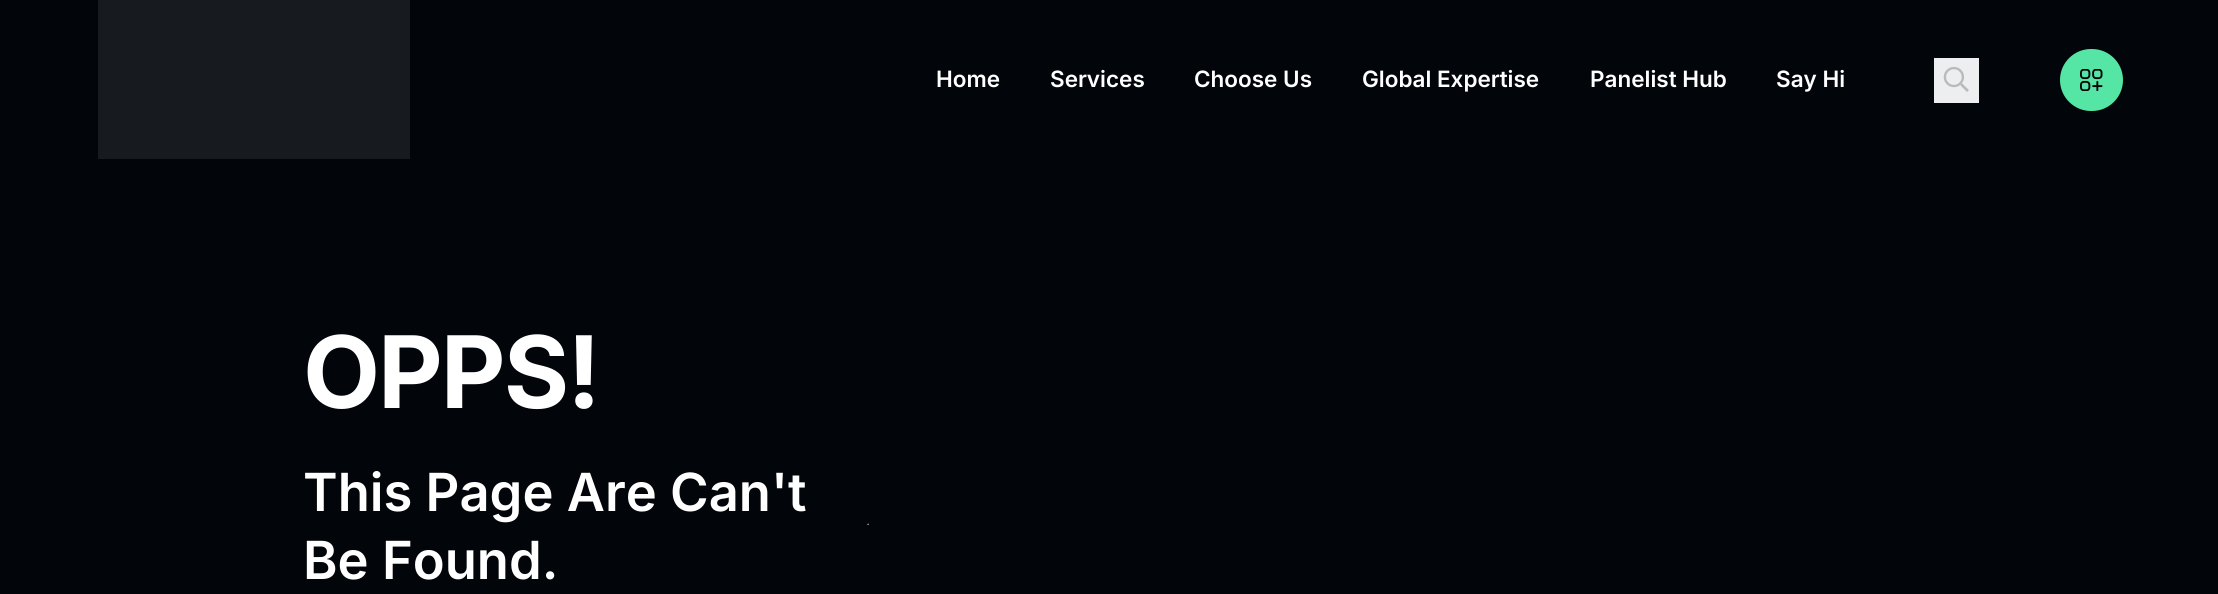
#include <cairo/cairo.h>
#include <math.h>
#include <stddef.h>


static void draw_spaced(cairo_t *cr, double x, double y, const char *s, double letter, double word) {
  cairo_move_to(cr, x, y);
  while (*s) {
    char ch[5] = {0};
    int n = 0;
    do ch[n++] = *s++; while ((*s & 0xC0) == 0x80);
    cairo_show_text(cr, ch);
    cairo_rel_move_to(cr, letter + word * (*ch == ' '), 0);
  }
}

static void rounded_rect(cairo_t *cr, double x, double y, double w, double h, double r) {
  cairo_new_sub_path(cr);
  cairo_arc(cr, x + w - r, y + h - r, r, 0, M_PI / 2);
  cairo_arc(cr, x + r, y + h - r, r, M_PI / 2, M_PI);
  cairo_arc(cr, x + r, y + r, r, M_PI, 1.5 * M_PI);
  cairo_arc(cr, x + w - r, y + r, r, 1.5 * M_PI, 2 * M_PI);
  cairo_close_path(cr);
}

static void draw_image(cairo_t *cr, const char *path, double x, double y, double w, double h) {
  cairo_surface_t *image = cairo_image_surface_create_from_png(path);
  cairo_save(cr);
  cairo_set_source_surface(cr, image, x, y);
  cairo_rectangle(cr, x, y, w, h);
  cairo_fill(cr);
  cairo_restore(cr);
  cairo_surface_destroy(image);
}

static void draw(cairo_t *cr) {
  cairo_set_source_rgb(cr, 2 / 255.0, 5 / 255.0, 10 / 255.0);
  cairo_paint(cr);
  cairo_set_source_rgb(cr, 23 / 255.0, 26 / 255.0, 31 / 255.0);
  cairo_rectangle(cr, 98, 0, 312, 159);
  cairo_fill(cr);
  cairo_set_source_rgb(cr, 236 / 255.0, 238 / 255.0, 239 / 255.0);
  cairo_rectangle(cr, 1934, 58, 45, 45);
  cairo_fill(cr);
  draw_image(cr, "images/1.png", 1943, 66, 26, 26);
  cairo_set_source_rgb(cr, 85 / 255.0, 230 / 255.0, 165 / 255.0);
  rounded_rect(cr, 2060, 49, 63, 62, 31);
  cairo_fill(cr);
  draw_image(cr, "images/2.png", 2080, 69, 23, 22);
  draw_image(cr, "images/3.png", 867, 523, 2, 2);
  cairo_select_font_face(cr, "Inter SemiBold", CAIRO_FONT_SLANT_NORMAL, CAIRO_FONT_WEIGHT_NORMAL);
  cairo_set_font_size(cr, 22.5);
  cairo_set_source_rgb(cr, 1, 1, 1);
  cairo_move_to(cr, 936, 87);
  cairo_show_text(cr, "Home");
  cairo_move_to(cr, 1050, 87);
  cairo_show_text(cr, "Services");
  cairo_move_to(cr, 1194, 87);
  cairo_show_text(cr, "Choose Us");
  cairo_move_to(cr, 1362, 87);
  cairo_show_text(cr, "Global Expertise");
  cairo_move_to(cr, 1590, 87);
  cairo_show_text(cr, "Panelist Hub");
  cairo_move_to(cr, 1776, 87);
  cairo_show_text(cr, "Say Hi");
  cairo_select_font_face(cr, "Inter", CAIRO_FONT_SLANT_NORMAL, CAIRO_FONT_WEIGHT_BOLD);
  cairo_set_font_size(cr, 100);
  draw_spaced(cr, 303, 408, "OPPS!", -2, 0);
  cairo_select_font_face(cr, "Inter SemiBold", CAIRO_FONT_SLANT_NORMAL, CAIRO_FONT_WEIGHT_NORMAL);
  cairo_set_font_size(cr, 52.5);
  cairo_move_to(cr, 303, 511);
  cairo_show_text(cr, "This Page Are Can't");
  cairo_move_to(cr, 303, 579);
  cairo_show_text(cr, "Be Found.");
}

int main(void) {
  cairo_surface_t *surface = cairo_image_surface_create(CAIRO_FORMAT_RGB24, 2218, 594);
  cairo_t *cr = cairo_create(surface);
  cairo_font_options_t *options = cairo_font_options_create();
  cairo_font_options_set_hint_metrics(options, CAIRO_HINT_METRICS_OFF);
  cairo_font_options_set_hint_style(options, CAIRO_HINT_STYLE_NONE);
  cairo_set_font_options(cr, options);
  cairo_set_miter_limit(cr, 4);
  draw(cr);
  cairo_surface_write_to_png(surface, "out.png");
  cairo_font_options_destroy(options);
  cairo_destroy(cr);
  cairo_surface_destroy(surface);
  return 0;
}
